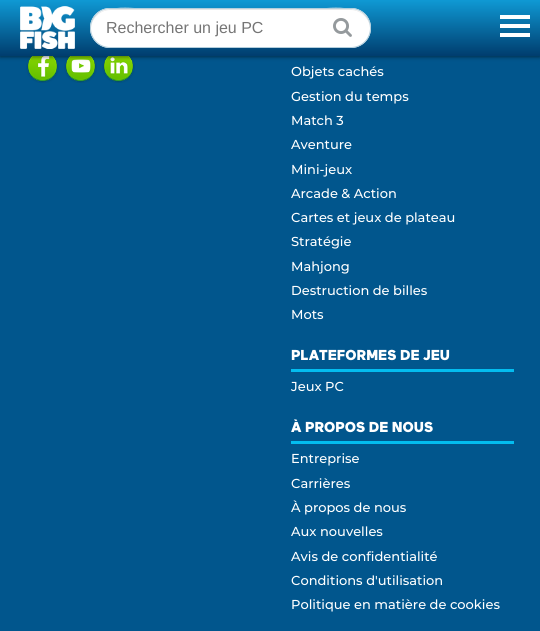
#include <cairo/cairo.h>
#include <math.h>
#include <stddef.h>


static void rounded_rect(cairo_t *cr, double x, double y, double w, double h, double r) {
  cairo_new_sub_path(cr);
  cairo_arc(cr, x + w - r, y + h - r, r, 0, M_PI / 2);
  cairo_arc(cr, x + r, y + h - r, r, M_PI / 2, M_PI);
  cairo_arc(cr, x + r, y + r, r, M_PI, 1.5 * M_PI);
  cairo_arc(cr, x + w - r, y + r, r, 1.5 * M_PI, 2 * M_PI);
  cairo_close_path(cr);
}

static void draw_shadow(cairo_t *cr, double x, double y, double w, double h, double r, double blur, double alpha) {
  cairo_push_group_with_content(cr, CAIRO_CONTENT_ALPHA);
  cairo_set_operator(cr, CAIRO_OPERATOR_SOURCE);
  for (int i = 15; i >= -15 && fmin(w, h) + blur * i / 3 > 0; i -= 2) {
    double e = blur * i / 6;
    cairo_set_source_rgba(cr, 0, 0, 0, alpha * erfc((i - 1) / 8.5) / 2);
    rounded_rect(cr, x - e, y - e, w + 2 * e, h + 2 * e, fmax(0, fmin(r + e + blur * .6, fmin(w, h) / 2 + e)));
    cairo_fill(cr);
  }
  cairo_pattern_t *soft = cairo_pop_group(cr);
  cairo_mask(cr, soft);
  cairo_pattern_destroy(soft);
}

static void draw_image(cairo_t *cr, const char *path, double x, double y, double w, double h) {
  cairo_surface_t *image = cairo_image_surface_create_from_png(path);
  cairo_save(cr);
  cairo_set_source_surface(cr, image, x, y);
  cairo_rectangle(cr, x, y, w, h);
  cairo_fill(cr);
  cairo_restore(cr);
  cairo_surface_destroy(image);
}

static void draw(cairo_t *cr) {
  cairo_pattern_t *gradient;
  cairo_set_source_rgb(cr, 1 / 255.0, 86 / 255.0, 141 / 255.0);
  cairo_paint(cr);
  draw_image(cr, "images/3.png", 26, 56, 33, 27);
  draw_image(cr, "images/4.png", 64, 56, 33, 27);
  draw_image(cr, "images/5.png", 102, 56, 33, 27);
  cairo_set_source_rgb(cr, 0, 0, 0);
  draw_shadow(cr, 0, 1, 540, 56, 0, 2, 0.5);
  gradient = cairo_pattern_create_linear(270, 0, 270, 56);
  cairo_pattern_add_color_stop_rgba(gradient, 0, 15 / 255.0, 153 / 255.0, 212 / 255.0, 1);
  cairo_pattern_add_color_stop_rgba(gradient, 1, 0, 61 / 255.0, 110 / 255.0, 1);
  cairo_set_source(cr, gradient);
  cairo_pattern_destroy(gradient);
  cairo_rectangle(cr, 0, 0, 540, 56);
  cairo_fill(cr);
  draw_image(cr, "images/1.png", 20, 6, 55, 43);
  cairo_set_source_rgb(cr, 1, 1, 1);
  rounded_rect(cr, 90, 8, 281, 40, 20);
  cairo_fill(cr);
  cairo_set_source_rgb(cr, 231 / 255.0, 231 / 255.0, 231 / 255.0);
  cairo_new_path(cr);
  cairo_move_to(cr, 110, 10);
  cairo_line_to(cr, 351, 10);
  cairo_curve_to(cr, 361, 10, 370, 19, 370, 29);
  cairo_curve_to(cr, 371, 0, 324, 9, 311, 9);
  cairo_line_to(cr, 150, 9);
  cairo_curve_to(cr, 137, 9, 90, 0, 91, 29);
  cairo_curve_to(cr, 91, 19, 100, 10, 110, 10);
  cairo_close_path(cr);
  cairo_fill(cr);
  rounded_rect(cr, 90.5, 8.5, 280, 39, 19.5);
  cairo_set_source_rgb(cr, 179 / 255.0, 206 / 255.0, 220 / 255.0);
  cairo_set_line_width(cr, 1);
  cairo_stroke(cr);
  draw_image(cr, "images/2.png", 333, 18, 19, 19);
  cairo_set_source_rgb(cr, 1, 1, 1);
  cairo_rectangle(cr, 500, 15, 30, 4);
  cairo_fill(cr);
  cairo_rectangle(cr, 500, 24, 30, 4);
  cairo_fill(cr);
  cairo_rectangle(cr, 500, 33, 30, 4);
  cairo_fill(cr);
  cairo_set_source_rgb(cr, 3 / 255.0, 189 / 255.0, 240 / 255.0);
  cairo_rectangle(cr, 291, 369, 223, 3);
  cairo_fill(cr);
  cairo_rectangle(cr, 291, 441, 223, 3);
  cairo_fill(cr);
  cairo_select_font_face(cr, "Liberation Sans", CAIRO_FONT_SLANT_NORMAL, CAIRO_FONT_WEIGHT_NORMAL);
  cairo_set_font_size(cr, 16);
  cairo_set_source_rgb(cr, 117 / 255.0, 117 / 255.0, 117 / 255.0);
  cairo_move_to(cr, 106, 33);
  cairo_show_text(cr, "Rechercher un jeu PC");
  cairo_select_font_face(cr, "Montserrat Medium", CAIRO_FONT_SLANT_NORMAL, CAIRO_FONT_WEIGHT_NORMAL);
  cairo_set_font_size(cr, 13);
  cairo_set_source_rgb(cr, 1, 1, 1);
  cairo_move_to(cr, 291, 76);
  cairo_show_text(cr, "Objets cachés");
  cairo_move_to(cr, 291, 101);
  cairo_show_text(cr, "Gestion du temps");
  cairo_move_to(cr, 291, 125);
  cairo_show_text(cr, "Match 3");
  cairo_move_to(cr, 291, 149);
  cairo_show_text(cr, "Aventure");
  cairo_move_to(cr, 291, 174);
  cairo_show_text(cr, "Mini-jeux");
  cairo_move_to(cr, 291, 198);
  cairo_show_text(cr, "Arcade & Action");
  cairo_move_to(cr, 291, 222);
  cairo_show_text(cr, "Cartes et jeux de plateau");
  cairo_move_to(cr, 291, 246);
  cairo_show_text(cr, "Stratégie");
  cairo_move_to(cr, 291, 271);
  cairo_show_text(cr, "Mahjong");
  cairo_move_to(cr, 291, 295);
  cairo_show_text(cr, "Destruction de billes");
  cairo_move_to(cr, 291, 319);
  cairo_show_text(cr, "Mots");
  cairo_select_font_face(cr, "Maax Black", CAIRO_FONT_SLANT_NORMAL, CAIRO_FONT_WEIGHT_NORMAL);
  cairo_set_font_size(cr, 14.4);
  cairo_move_to(cr, 291, 360);
  cairo_show_text(cr, "PLATEFORMES DE JEU");
  cairo_select_font_face(cr, "Montserrat Medium", CAIRO_FONT_SLANT_NORMAL, CAIRO_FONT_WEIGHT_NORMAL);
  cairo_set_font_size(cr, 13);
  cairo_move_to(cr, 291, 391);
  cairo_show_text(cr, "Jeux PC");
  cairo_select_font_face(cr, "Maax Black", CAIRO_FONT_SLANT_NORMAL, CAIRO_FONT_WEIGHT_NORMAL);
  cairo_set_font_size(cr, 14.4);
  cairo_move_to(cr, 291, 432);
  cairo_show_text(cr, "À PROPOS DE NOUS");
  cairo_select_font_face(cr, "Montserrat Medium", CAIRO_FONT_SLANT_NORMAL, CAIRO_FONT_WEIGHT_NORMAL);
  cairo_set_font_size(cr, 13);
  cairo_move_to(cr, 291, 463);
  cairo_show_text(cr, "Entreprise");
  cairo_move_to(cr, 291, 488);
  cairo_show_text(cr, "Carrières");
  cairo_move_to(cr, 291, 512);
  cairo_show_text(cr, "À propos de nous");
  cairo_move_to(cr, 291, 536);
  cairo_show_text(cr, "Aux nouvelles");
  cairo_move_to(cr, 291, 561);
  cairo_show_text(cr, "Avis de confidentialité");
  cairo_move_to(cr, 291, 585);
  cairo_show_text(cr, "Conditions d'utilisation");
  cairo_move_to(cr, 291, 609);
  cairo_show_text(cr, "Politique en matière de cookies");
}

int main(void) {
  cairo_surface_t *surface = cairo_image_surface_create(CAIRO_FORMAT_RGB24, 540, 631);
  cairo_t *cr = cairo_create(surface);
  cairo_font_options_t *options = cairo_font_options_create();
  cairo_font_options_set_hint_metrics(options, CAIRO_HINT_METRICS_OFF);
  cairo_font_options_set_hint_style(options, CAIRO_HINT_STYLE_NONE);
  cairo_set_font_options(cr, options);
  cairo_set_miter_limit(cr, 4);
  draw(cr);
  cairo_surface_write_to_png(surface, "out.png");
  cairo_font_options_destroy(options);
  cairo_destroy(cr);
  cairo_surface_destroy(surface);
  return 0;
}
